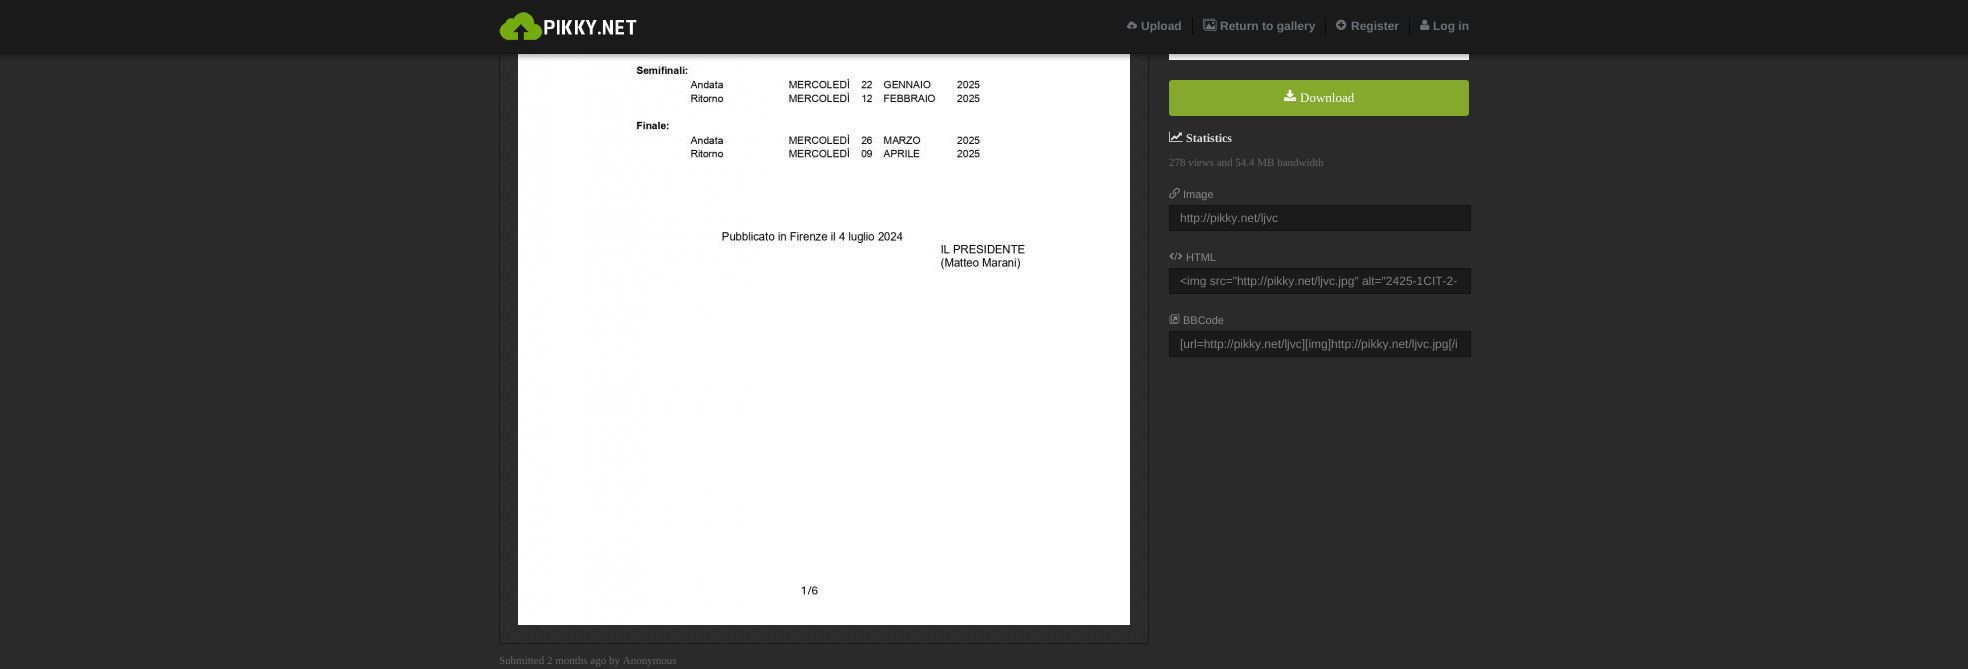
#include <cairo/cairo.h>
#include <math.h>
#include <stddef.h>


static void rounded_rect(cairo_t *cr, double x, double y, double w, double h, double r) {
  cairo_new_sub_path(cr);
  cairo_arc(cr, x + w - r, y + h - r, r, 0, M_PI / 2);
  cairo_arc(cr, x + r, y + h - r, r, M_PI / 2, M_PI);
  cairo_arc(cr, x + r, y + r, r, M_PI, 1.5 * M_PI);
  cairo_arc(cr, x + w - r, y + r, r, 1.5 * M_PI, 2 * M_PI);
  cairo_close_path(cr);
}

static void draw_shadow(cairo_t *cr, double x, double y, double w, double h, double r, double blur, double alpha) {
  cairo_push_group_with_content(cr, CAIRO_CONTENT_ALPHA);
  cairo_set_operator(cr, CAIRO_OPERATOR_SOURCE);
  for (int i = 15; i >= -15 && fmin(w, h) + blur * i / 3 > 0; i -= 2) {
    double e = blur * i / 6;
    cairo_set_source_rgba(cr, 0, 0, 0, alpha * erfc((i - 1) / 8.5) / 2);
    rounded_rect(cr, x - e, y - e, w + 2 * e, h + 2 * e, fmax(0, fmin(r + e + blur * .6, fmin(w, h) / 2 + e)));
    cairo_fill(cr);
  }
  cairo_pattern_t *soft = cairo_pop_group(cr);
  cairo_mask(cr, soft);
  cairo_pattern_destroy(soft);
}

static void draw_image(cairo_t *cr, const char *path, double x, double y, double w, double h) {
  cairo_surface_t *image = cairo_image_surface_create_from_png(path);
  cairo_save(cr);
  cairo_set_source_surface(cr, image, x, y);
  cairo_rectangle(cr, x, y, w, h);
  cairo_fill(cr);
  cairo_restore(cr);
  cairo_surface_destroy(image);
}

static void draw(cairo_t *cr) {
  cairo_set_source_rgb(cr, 42 / 255.0, 42 / 255.0, 42 / 255.0);
  cairo_paint(cr);
  draw_image(cr, "images/6.png", 500, 54, 648, 589);
  cairo_rectangle(cr, 499.5, -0.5, 649, 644);
  cairo_set_source_rgb(cr, 26 / 255.0, 26 / 255.0, 26 / 255.0);
  cairo_set_line_width(cr, 1);
  cairo_stroke(cr);
  draw_image(cr, "images/7.png", 518, 54, 612, 571);
  cairo_set_source_rgb(cr, 1, 1, 1);
  cairo_rectangle(cr, 1169, 54, 300, 6);
  cairo_fill(cr);
  cairo_set_source_rgb(cr, 0, 0, 0);
  draw_shadow(cr, 0, 3, 1968, 54, 0, 2.5, 0.28);
  cairo_set_source_rgb(cr, 26 / 255.0, 26 / 255.0, 26 / 255.0);
  cairo_rectangle(cr, 0, 0, 1968, 53);
  cairo_fill(cr);
  cairo_set_source_rgb(cr, 19 / 255.0, 19 / 255.0, 19 / 255.0);
  cairo_rectangle(cr, 0, 53, 1968, 1);
  cairo_fill(cr);
  draw_image(cr, "images/1.png", 499, 12, 138, 29);
  cairo_set_source_rgb(cr, 8 / 255.0, 8 / 255.0, 8 / 255.0);
  cairo_rectangle(cr, 1192, 18, 1, 17);
  cairo_fill(cr);
  draw_image(cr, "images/2.png", 1127, 21, 10, 8);
  cairo_rectangle(cr, 1325, 18, 1, 17);
  cairo_fill(cr);
  draw_image(cr, "images/3.png", 1203, 18, 14, 13);
  cairo_rectangle(cr, 1409, 18, 1, 17);
  cairo_fill(cr);
  draw_image(cr, "images/4.png", 1336, 19, 11, 11);
  draw_image(cr, "images/5.png", 1420, 19, 10, 11);
  cairo_set_source_rgb(cr, 133 / 255.0, 169 / 255.0, 45 / 255.0);
  rounded_rect(cr, 1169, 80, 300, 36, 3);
  cairo_fill(cr);
  draw_image(cr, "images/8.png", 1284, 89, 13, 13);
  draw_image(cr, "images/9.png", 1169, 131, 14, 11);
  draw_image(cr, "images/10.png", 1169, 187, 11, 12);
  cairo_set_source_rgb(cr, 26 / 255.0, 26 / 255.0, 26 / 255.0);
  cairo_rectangle(cr, 1169.5, 205.5, 301, 25);
  cairo_fill_preserve(cr);
  cairo_set_source_rgb(cr, 18 / 255.0, 18 / 255.0, 18 / 255.0);
  cairo_stroke(cr);
  draw_image(cr, "images/11.png", 1169, 252, 14, 8);
  cairo_set_source_rgb(cr, 26 / 255.0, 26 / 255.0, 26 / 255.0);
  cairo_rectangle(cr, 1169.5, 268.5, 301, 25);
  cairo_fill_preserve(cr);
  cairo_set_source_rgb(cr, 18 / 255.0, 18 / 255.0, 18 / 255.0);
  cairo_stroke(cr);
  draw_image(cr, "images/12.png", 1169, 314, 11, 10);
  cairo_set_source_rgb(cr, 26 / 255.0, 26 / 255.0, 26 / 255.0);
  cairo_rectangle(cr, 1169.5, 331.5, 301, 25);
  cairo_fill_preserve(cr);
  cairo_set_source_rgb(cr, 18 / 255.0, 18 / 255.0, 18 / 255.0);
  cairo_stroke(cr);
  cairo_select_font_face(cr, "Liberation Sans", CAIRO_FONT_SLANT_NORMAL, CAIRO_FONT_WEIGHT_BOLD);
  cairo_set_font_size(cr, 12);
  cairo_set_source_rgb(cr, 108 / 255.0, 113 / 255.0, 118 / 255.0);
  cairo_move_to(cr, 1141, 30);
  cairo_show_text(cr, "Upload");
  cairo_move_to(cr, 1220, 30);
  cairo_show_text(cr, "Return to gallery");
  cairo_move_to(cr, 1351, 30);
  cairo_show_text(cr, "Register");
  cairo_move_to(cr, 1433, 30);
  cairo_show_text(cr, "Log in");
  cairo_select_font_face(cr, "Liberation Serif", CAIRO_FONT_SLANT_NORMAL, CAIRO_FONT_WEIGHT_NORMAL);
  cairo_set_font_size(cr, 13);
  cairo_set_source_rgb(cr, 1, 1, 1);
  cairo_move_to(cr, 1300, 102);
  cairo_show_text(cr, "Download");
  cairo_select_font_face(cr, "Liberation Serif", CAIRO_FONT_SLANT_NORMAL, CAIRO_FONT_WEIGHT_BOLD);
  cairo_set_font_size(cr, 12);
  cairo_set_source_rgb(cr, 223 / 255.0, 223 / 255.0, 223 / 255.0);
  cairo_move_to(cr, 1186, 142);
  cairo_show_text(cr, "Statistics");
  cairo_select_font_face(cr, "Liberation Serif", CAIRO_FONT_SLANT_NORMAL, CAIRO_FONT_WEIGHT_NORMAL);
  cairo_set_font_size(cr, 11);
  cairo_set_source_rgb(cr, 102 / 255.0, 102 / 255.0, 102 / 255.0);
  cairo_move_to(cr, 1169, 166);
  cairo_show_text(cr, "278 views and 54.4 MB bandwidth");
  cairo_select_font_face(cr, "Liberation Sans", CAIRO_FONT_SLANT_NORMAL, CAIRO_FONT_WEIGHT_NORMAL);
  cairo_set_source_rgb(cr, 136 / 255.0, 136 / 255.0, 136 / 255.0);
  cairo_move_to(cr, 1183, 198);
  cairo_show_text(cr, "Image");
  cairo_set_font_size(cr, 12);
  cairo_set_source_rgb(cr, 128 / 255.0, 128 / 255.0, 128 / 255.0);
  cairo_move_to(cr, 1180, 222);
  cairo_show_text(cr, "http://pikky.net/ljvc");
  cairo_set_font_size(cr, 11);
  cairo_set_source_rgb(cr, 136 / 255.0, 136 / 255.0, 136 / 255.0);
  cairo_move_to(cr, 1186, 261);
  cairo_show_text(cr, "HTML");
  cairo_set_font_size(cr, 12);
  cairo_set_source_rgb(cr, 128 / 255.0, 128 / 255.0, 128 / 255.0);
  cairo_move_to(cr, 1180, 285);
  cairo_show_text(cr, "<img src=\"http://pikky.net/ljvc.jpg\" alt=\"2425-1CIT-2-");
  cairo_set_font_size(cr, 11);
  cairo_set_source_rgb(cr, 136 / 255.0, 136 / 255.0, 136 / 255.0);
  cairo_move_to(cr, 1183, 324);
  cairo_show_text(cr, "BBCode");
  cairo_set_font_size(cr, 12);
  cairo_set_source_rgb(cr, 128 / 255.0, 128 / 255.0, 128 / 255.0);
  cairo_move_to(cr, 1180, 348);
  cairo_show_text(cr, "[url=http://pikky.net/ljvc][img]http://pikky.net/ljvc.jpg[/i");
  cairo_select_font_face(cr, "Liberation Serif", CAIRO_FONT_SLANT_NORMAL, CAIRO_FONT_WEIGHT_NORMAL);
  cairo_set_font_size(cr, 11);
  cairo_set_source_rgb(cr, 102 / 255.0, 102 / 255.0, 102 / 255.0);
  cairo_move_to(cr, 499, 664);
  cairo_show_text(cr, "Submitted 2 months ago by Anonymous");
}

int main(void) {
  cairo_surface_t *surface = cairo_image_surface_create(CAIRO_FORMAT_RGB24, 1968, 669);
  cairo_t *cr = cairo_create(surface);
  cairo_font_options_t *options = cairo_font_options_create();
  cairo_font_options_set_hint_metrics(options, CAIRO_HINT_METRICS_OFF);
  cairo_font_options_set_hint_style(options, CAIRO_HINT_STYLE_NONE);
  cairo_set_font_options(cr, options);
  cairo_set_miter_limit(cr, 4);
  draw(cr);
  cairo_surface_write_to_png(surface, "out.png");
  cairo_font_options_destroy(options);
  cairo_destroy(cr);
  cairo_surface_destroy(surface);
  return 0;
}
